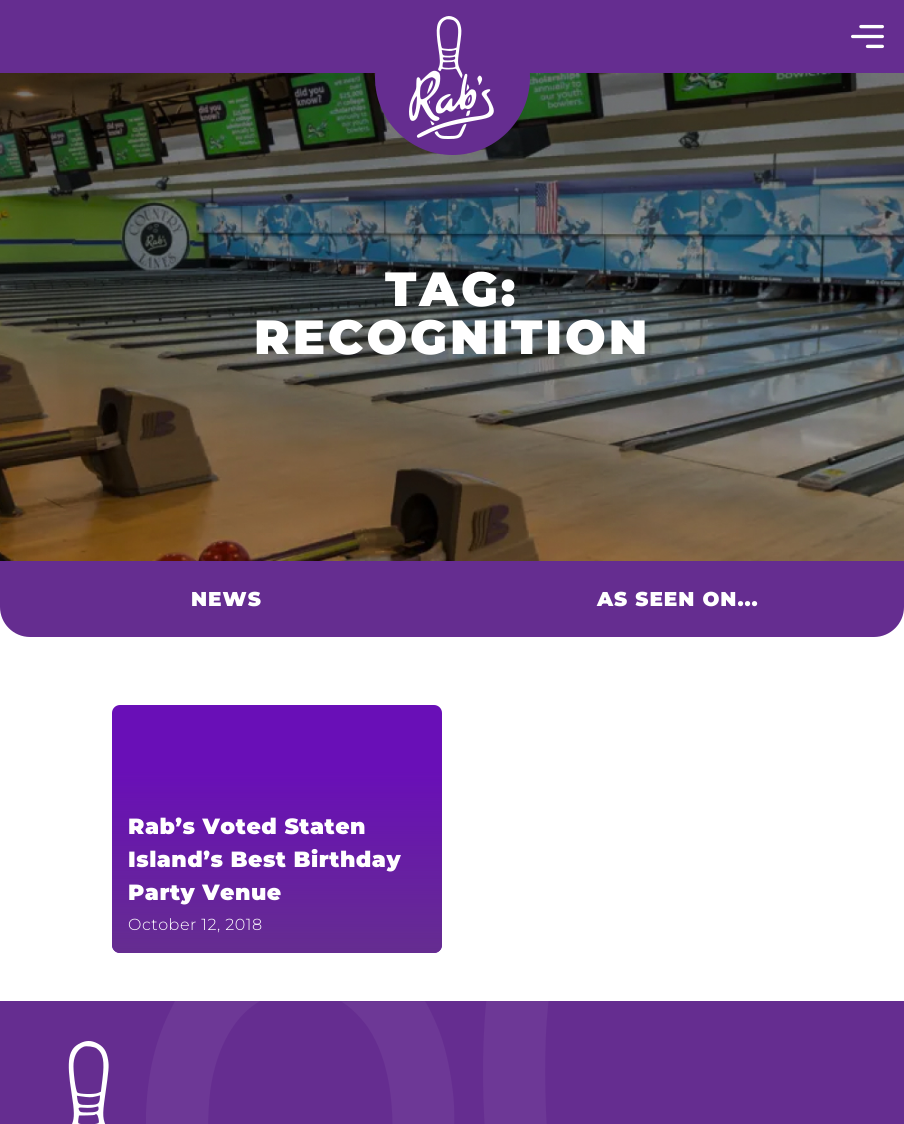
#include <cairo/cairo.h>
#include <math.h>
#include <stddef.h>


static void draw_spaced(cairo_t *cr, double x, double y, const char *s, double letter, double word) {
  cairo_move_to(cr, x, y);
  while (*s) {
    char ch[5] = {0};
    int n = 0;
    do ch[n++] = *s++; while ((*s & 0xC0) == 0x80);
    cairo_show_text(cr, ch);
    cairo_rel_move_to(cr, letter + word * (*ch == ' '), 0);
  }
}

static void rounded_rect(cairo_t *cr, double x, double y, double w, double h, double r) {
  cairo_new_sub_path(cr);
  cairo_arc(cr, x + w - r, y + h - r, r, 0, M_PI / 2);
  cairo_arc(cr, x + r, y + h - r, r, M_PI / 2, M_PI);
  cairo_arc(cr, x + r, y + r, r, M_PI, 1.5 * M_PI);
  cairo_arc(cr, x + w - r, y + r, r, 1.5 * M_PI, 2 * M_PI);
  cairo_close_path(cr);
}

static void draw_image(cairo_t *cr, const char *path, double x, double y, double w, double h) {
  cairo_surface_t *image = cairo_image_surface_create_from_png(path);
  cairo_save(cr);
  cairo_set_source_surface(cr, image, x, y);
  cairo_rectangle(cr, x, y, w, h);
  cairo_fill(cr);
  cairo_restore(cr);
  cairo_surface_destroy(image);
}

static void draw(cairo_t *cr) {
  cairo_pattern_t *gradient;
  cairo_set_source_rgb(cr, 1, 1, 1);
  cairo_paint(cr);
  cairo_set_source_rgb(cr, 101 / 255.0, 45 / 255.0, 144 / 255.0);
  cairo_rectangle(cr, 0, 0, 904, 73);
  cairo_fill(cr);
  draw_image(cr, "images/3.png", 0, 73, 904, 488);
  cairo_arc(cr, 452.5, 77.5, 77.5, 0, 2 * M_PI);
  cairo_fill(cr);
  draw_image(cr, "images/1.png", 409, 16, 85, 123);
  draw_image(cr, "images/2.png", 851, 24, 33, 25);
  cairo_new_path(cr);
  cairo_move_to(cr, 0, 561);
  cairo_line_to(cr, 904, 561);
  cairo_line_to(cr, 904, 607);
  cairo_curve_to(cr, 904, 623.5, 890.5, 637, 874, 637);
  cairo_line_to(cr, 30, 637);
  cairo_curve_to(cr, 13.5, 637, 0, 623.5, 0, 607);
  cairo_close_path(cr);
  cairo_fill(cr);
  cairo_set_source_rgb(cr, 105 / 255.0, 15 / 255.0, 183 / 255.0);
  rounded_rect(cr, 112, 705, 330, 248, 8);
  cairo_fill(cr);
  gradient = cairo_pattern_create_linear(277, 953, 277, 705);
  cairo_pattern_add_color_stop_rgba(gradient, 0, 101 / 255.0, 45 / 255.0, 144 / 255.0, 1);
  cairo_pattern_add_color_stop_rgba(gradient, 0.73, 101 / 255.0, 45 / 255.0, 144 / 255.0, 0);
  cairo_set_source(cr, gradient);
  cairo_pattern_destroy(gradient);
  rounded_rect(cr, 112, 705, 330, 248, 8);
  cairo_fill(cr);
  cairo_set_source_rgb(cr, 101 / 255.0, 45 / 255.0, 144 / 255.0);
  cairo_rectangle(cr, 0, 1001, 904, 123);
  cairo_fill(cr);
  draw_image(cr, "images/4.png", 146, 1001, 403, 123);
  draw_image(cr, "images/5.png", 68, 1041, 41, 83);
  cairo_select_font_face(cr, "Montserrat Thin", CAIRO_FONT_SLANT_NORMAL, CAIRO_FONT_WEIGHT_NORMAL);
  cairo_set_font_size(cr, 48);
  cairo_set_source_rgb(cr, 1, 1, 1);
  draw_spaced(cr, 385, 306, "TAG:", 2.9, 0);
  draw_spaced(cr, 254, 354, "RECOGNITION", 2.9, 0);
  cairo_set_font_size(cr, 20);
  draw_spaced(cr, 191, 606, "NEWS", 1, 0);
  draw_spaced(cr, 597, 606, "AS SEEN ON...", 1, 0);
  cairo_set_font_size(cr, 22);
  draw_spaced(cr, 128, 834, "Rab’s Voted Staten", 0.5, 0);
  draw_spaced(cr, 128, 867, "Island’s Best Birthday", 0.5, 0);
  draw_spaced(cr, 128, 900, "Party Venue", 0.5, 0);
  cairo_select_font_face(cr, "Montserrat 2 Thin", CAIRO_FONT_SLANT_NORMAL, CAIRO_FONT_WEIGHT_NORMAL);
  cairo_set_font_size(cr, 16);
  draw_spaced(cr, 128, 930, "October 12, 2018", 0.5, 0);
}

int main(void) {
  cairo_surface_t *surface = cairo_image_surface_create(CAIRO_FORMAT_RGB24, 904, 1124);
  cairo_t *cr = cairo_create(surface);
  cairo_font_options_t *options = cairo_font_options_create();
  cairo_font_options_set_hint_metrics(options, CAIRO_HINT_METRICS_OFF);
  cairo_font_options_set_hint_style(options, CAIRO_HINT_STYLE_NONE);
  cairo_set_font_options(cr, options);
  cairo_set_miter_limit(cr, 4);
  draw(cr);
  cairo_surface_write_to_png(surface, "out.png");
  cairo_font_options_destroy(options);
  cairo_destroy(cr);
  cairo_surface_destroy(surface);
  return 0;
}
